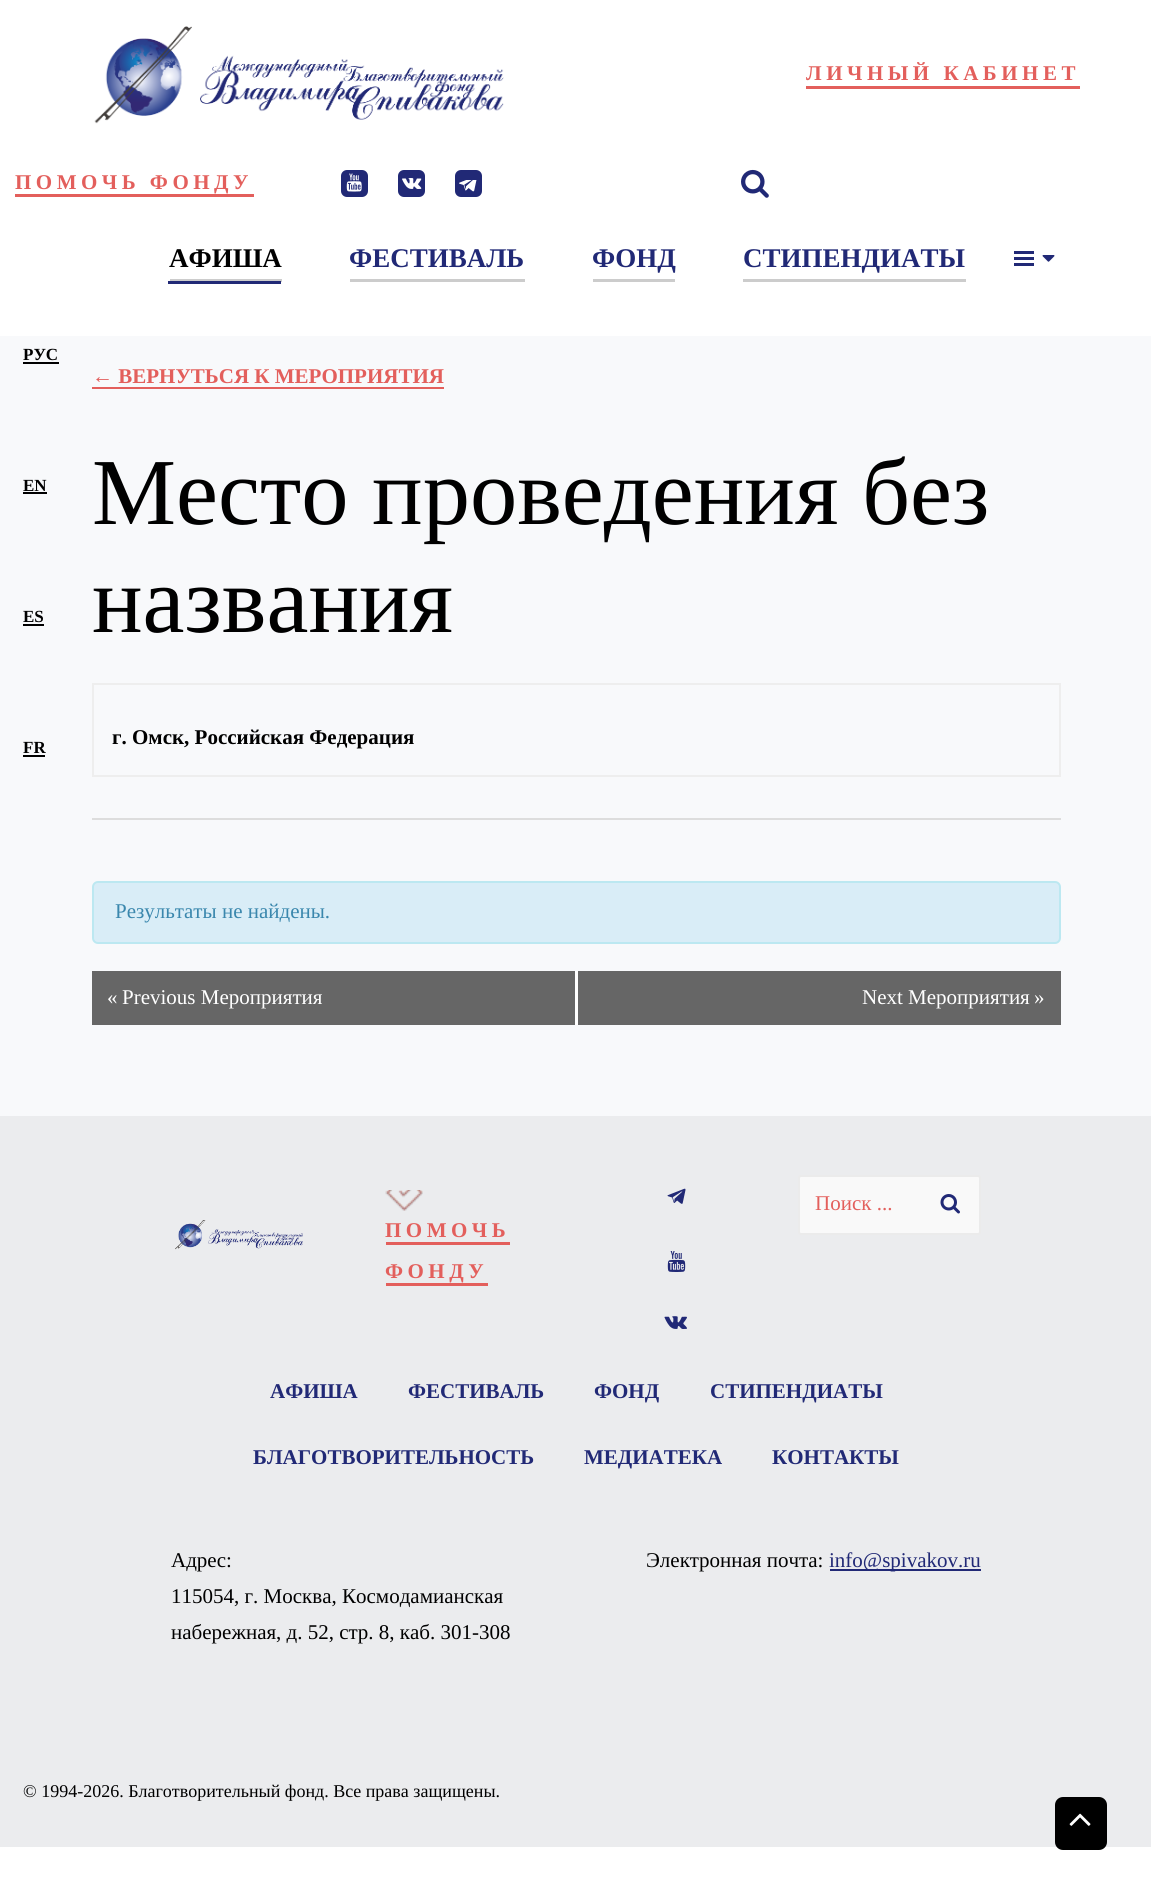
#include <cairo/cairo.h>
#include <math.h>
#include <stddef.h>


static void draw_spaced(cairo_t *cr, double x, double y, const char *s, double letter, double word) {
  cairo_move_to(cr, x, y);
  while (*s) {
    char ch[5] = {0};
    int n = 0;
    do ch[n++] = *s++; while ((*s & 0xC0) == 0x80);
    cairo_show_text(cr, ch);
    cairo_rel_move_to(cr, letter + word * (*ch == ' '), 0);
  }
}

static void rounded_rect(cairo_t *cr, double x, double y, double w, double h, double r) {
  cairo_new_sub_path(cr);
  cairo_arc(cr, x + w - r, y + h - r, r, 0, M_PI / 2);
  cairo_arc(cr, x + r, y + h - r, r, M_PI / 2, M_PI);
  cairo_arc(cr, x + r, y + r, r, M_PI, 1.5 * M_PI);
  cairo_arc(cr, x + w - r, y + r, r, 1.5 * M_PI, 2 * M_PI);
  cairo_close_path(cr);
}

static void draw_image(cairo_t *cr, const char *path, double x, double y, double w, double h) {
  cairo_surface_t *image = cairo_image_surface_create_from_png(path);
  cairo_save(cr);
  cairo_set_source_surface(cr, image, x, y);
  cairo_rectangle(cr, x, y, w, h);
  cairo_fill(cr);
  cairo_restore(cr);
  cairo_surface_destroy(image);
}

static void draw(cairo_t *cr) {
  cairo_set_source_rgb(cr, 1, 1, 1);
  cairo_paint(cr);
  cairo_set_source_rgb(cr, 248 / 255.0, 249 / 255.0, 251 / 255.0);
  cairo_rectangle(cr, 0, 336, 1151, 780);
  cairo_fill(cr);
  draw_image(cr, "images/1.png", 94, 26, 410, 98);
  cairo_set_source_rgb(cr, 227 / 255.0, 95 / 255.0, 92 / 255.0);
  cairo_rectangle(cr, 806, 86, 274, 3);
  cairo_fill(cr);
  cairo_rectangle(cr, 15, 194, 239, 3);
  cairo_fill(cr);
  cairo_set_source_rgb(cr, 33 / 255.0, 41 / 255.0, 118 / 255.0);
  rounded_rect(cr, 341, 170, 27, 27, 6);
  cairo_fill(cr);
  draw_image(cr, "images/2.png", 346, 173, 16, 19);
  rounded_rect(cr, 398, 170, 27, 27, 6);
  cairo_fill(cr);
  draw_image(cr, "images/3.png", 402, 178, 20, 11);
  rounded_rect(cr, 455, 170, 27, 27, 6);
  cairo_fill(cr);
  draw_image(cr, "images/4.png", 459, 180, 18, 12);
  draw_image(cr, "images/5.png", 741, 169, 28, 29);
  cairo_set_source_rgb(cr, 204 / 255.0, 204 / 255.0, 204 / 255.0);
  cairo_rectangle(cr, 170, 279, 112, 3);
  cairo_fill(cr);
  cairo_set_source_rgb(cr, 33 / 255.0, 41 / 255.0, 118 / 255.0);
  cairo_rectangle(cr, 168, 281, 113, 3);
  cairo_fill(cr);
  cairo_set_source_rgb(cr, 204 / 255.0, 204 / 255.0, 204 / 255.0);
  cairo_rectangle(cr, 350, 279, 175, 3);
  cairo_fill(cr);
  cairo_rectangle(cr, 593, 279, 82, 3);
  cairo_fill(cr);
  cairo_rectangle(cr, 743, 279, 223, 3);
  cairo_fill(cr);
  cairo_set_source_rgb(cr, 33 / 255.0, 41 / 255.0, 118 / 255.0);
  cairo_rectangle(cr, 1014, 251, 20, 3);
  cairo_fill(cr);
  cairo_rectangle(cr, 1014, 257, 20, 3);
  cairo_fill(cr);
  cairo_rectangle(cr, 1014, 263, 20, 3);
  cairo_fill(cr);
  draw_image(cr, "images/6.png", 1042, 255, 13, 7);
  cairo_set_source_rgb(cr, 0, 0, 0);
  cairo_rectangle(cr, 23, 362, 36, 2);
  cairo_fill(cr);
  cairo_rectangle(cr, 23, 492, 24, 2);
  cairo_fill(cr);
  cairo_rectangle(cr, 23, 624, 21, 2);
  cairo_fill(cr);
  cairo_rectangle(cr, 23, 755, 22, 2);
  cairo_fill(cr);
  cairo_set_source_rgb(cr, 227 / 255.0, 95 / 255.0, 92 / 255.0);
  cairo_rectangle(cr, 92, 387, 352, 2);
  cairo_fill(cr);
  cairo_set_source_rgb(cr, 221 / 255.0, 221 / 255.0, 221 / 255.0);
  cairo_rectangle(cr, 92, 818, 969, 2);
  cairo_fill(cr);
  cairo_rectangle(cr, 93, 684, 967, 92);
  cairo_set_source_rgb(cr, 238 / 255.0, 238 / 255.0, 238 / 255.0);
  cairo_stroke(cr);
  cairo_set_source_rgb(cr, 217 / 255.0, 237 / 255.0, 247 / 255.0);
  rounded_rect(cr, 93, 882, 967, 61, 5);
  cairo_fill_preserve(cr);
  cairo_set_source_rgb(cr, 188 / 255.0, 232 / 255.0, 241 / 255.0);
  cairo_stroke(cr);
  cairo_set_source_rgb(cr, 1, 1, 1);
  cairo_rectangle(cr, 575, 971, 3, 54);
  cairo_fill(cr);
  cairo_set_source_rgb(cr, 102 / 255.0, 102 / 255.0, 102 / 255.0);
  cairo_rectangle(cr, 92, 971, 483, 54);
  cairo_fill(cr);
  cairo_rectangle(cr, 578, 971, 483, 54);
  cairo_fill(cr);
  cairo_set_source_rgb(cr, 235 / 255.0, 236 / 255.0, 238 / 255.0);
  cairo_rectangle(cr, 0, 1116, 1151, 731);
  cairo_fill(cr);
  draw_image(cr, "images/7.png", 175, 1220, 128, 30);
  draw_image(cr, "images/8.png", 667, 1188, 19, 16);
  draw_image(cr, "images/9.png", 667, 1251, 19, 21);
  draw_image(cr, "images/10.png", 664, 1316, 23, 13);
  cairo_set_source_rgb(cr, 249 / 255.0, 249 / 255.0, 249 / 255.0);
  rounded_rect(cr, 799, 1176, 181, 58, 2);
  cairo_fill_preserve(cr);
  cairo_set_source_rgb(cr, 235 / 255.0, 235 / 255.0, 235 / 255.0);
  cairo_stroke(cr);
  draw_image(cr, "images/11.png", 940, 1194, 20, 20);
  draw_image(cr, "images/12.png", 385, 1190, 38, 21);
  cairo_set_source_rgb(cr, 227 / 255.0, 95 / 255.0, 92 / 255.0);
  cairo_rectangle(cr, 386, 1242, 124, 3);
  cairo_fill(cr);
  cairo_rectangle(cr, 386, 1283, 102, 3);
  cairo_fill(cr);
  cairo_set_source_rgb(cr, 33 / 255.0, 41 / 255.0, 118 / 255.0);
  cairo_rectangle(cr, 830, 1569, 151, 2);
  cairo_fill(cr);
  cairo_set_source_rgb(cr, 0, 0, 0);
  rounded_rect(cr, 1055, 1797, 52, 53, 8);
  cairo_fill(cr);
  draw_image(cr, "images/13.png", 1069, 1813, 22, 13);
  cairo_select_font_face(cr, "Liberation Serif", CAIRO_FONT_SLANT_NORMAL, CAIRO_FONT_WEIGHT_BOLD);
  cairo_set_font_size(cr, 21);
  cairo_set_source_rgb(cr, 227 / 255.0, 95 / 255.0, 92 / 255.0);
  draw_spaced(cr, 806, 80, "ЛИЧНЫЙ КАБИНЕТ", 4.5, 0);
  draw_spaced(cr, 15, 189, "ПОМОЧЬ ФОНДУ", 4.5, 0);
  cairo_set_font_size(cr, 27);
  cairo_set_source_rgb(cr, 0, 0, 0);
  cairo_move_to(cr, 169, 267);
  cairo_show_text(cr, "АФИША");
  cairo_set_source_rgb(cr, 33 / 255.0, 41 / 255.0, 118 / 255.0);
  cairo_move_to(cr, 349, 267);
  cairo_show_text(cr, "ФЕСТИВАЛЬ");
  cairo_move_to(cr, 592, 267);
  cairo_show_text(cr, "ФОНД");
  cairo_move_to(cr, 743, 267);
  cairo_show_text(cr, "СТИПЕНДИАТЫ");
  cairo_set_font_size(cr, 17);
  cairo_set_source_rgb(cr, 0, 0, 0);
  cairo_move_to(cr, 23, 360);
  cairo_show_text(cr, "РУС");
  cairo_move_to(cr, 23, 491);
  cairo_show_text(cr, "EN");
  cairo_move_to(cr, 23, 622);
  cairo_show_text(cr, "ES");
  cairo_move_to(cr, 23, 753);
  cairo_show_text(cr, "FR");
  cairo_set_font_size(cr, 21);
  cairo_set_source_rgb(cr, 227 / 255.0, 95 / 255.0, 92 / 255.0);
  cairo_move_to(cr, 92, 383);
  cairo_show_text(cr, "← ВЕРНУТЬСЯ К МЕРОПРИЯТИЯ");
  cairo_select_font_face(cr, "Liberation Serif", CAIRO_FONT_SLANT_NORMAL, CAIRO_FONT_WEIGHT_NORMAL);
  cairo_set_font_size(cr, 94.5);
  cairo_set_source_rgb(cr, 0, 0, 0);
  cairo_move_to(cr, 92, 524);
  cairo_show_text(cr, "Место проведения без");
  cairo_move_to(cr, 92, 632);
  cairo_show_text(cr, "названия");
  cairo_select_font_face(cr, "Liberation Serif", CAIRO_FONT_SLANT_NORMAL, CAIRO_FONT_WEIGHT_BOLD);
  cairo_set_font_size(cr, 21);
  cairo_move_to(cr, 112, 744);
  cairo_show_text(cr, "г. Омск, Российская Федерация");
  cairo_select_font_face(cr, "Liberation Serif", CAIRO_FONT_SLANT_NORMAL, CAIRO_FONT_WEIGHT_NORMAL);
  cairo_set_source_rgb(cr, 58 / 255.0, 135 / 255.0, 173 / 255.0);
  cairo_move_to(cr, 115, 918);
  cairo_show_text(cr, "Результаты не найдены.");
  cairo_set_source_rgb(cr, 1, 1, 1);
  cairo_move_to(cr, 107, 1004);
  cairo_show_text(cr, "«");
  cairo_move_to(cr, 122, 1004);
  cairo_show_text(cr, "Previous Мероприятия");
  cairo_move_to(cr, 862, 1004);
  cairo_show_text(cr, "Next Мероприятия");
  cairo_move_to(cr, 1034, 1004);
  cairo_show_text(cr, "»");
  cairo_set_source_rgb(cr, 227 / 255.0, 95 / 255.0, 92 / 255.0);
  cairo_move_to(cr, 815, 1210);
  cairo_show_text(cr, "Поиск ...");
  cairo_select_font_face(cr, "Liberation Serif", CAIRO_FONT_SLANT_NORMAL, CAIRO_FONT_WEIGHT_BOLD);
  draw_spaced(cr, 385, 1237, "ПОМОЧЬ", 4.5, 0);
  draw_spaced(cr, 385, 1278, "ФОНДУ", 4.5, 0);
  cairo_set_source_rgb(cr, 33 / 255.0, 41 / 255.0, 118 / 255.0);
  cairo_move_to(cr, 270, 1398);
  cairo_show_text(cr, "АФИША");
  cairo_move_to(cr, 408, 1398);
  cairo_show_text(cr, "ФЕСТИВАЛЬ");
  cairo_move_to(cr, 594, 1398);
  cairo_show_text(cr, "ФОНД");
  cairo_move_to(cr, 710, 1398);
  cairo_show_text(cr, "СТИПЕНДИАТЫ");
  cairo_move_to(cr, 253, 1464);
  cairo_show_text(cr, "БЛАГОТВОРИТЕЛЬНОСТЬ");
  cairo_move_to(cr, 584, 1464);
  cairo_show_text(cr, "МЕДИАТЕКА");
  cairo_move_to(cr, 772, 1464);
  cairo_show_text(cr, "КОНТАКТЫ");
  cairo_select_font_face(cr, "Liberation Serif", CAIRO_FONT_SLANT_NORMAL, CAIRO_FONT_WEIGHT_NORMAL);
  cairo_set_source_rgb(cr, 0, 0, 0);
  cairo_move_to(cr, 171, 1567);
  cairo_show_text(cr, "Адрес:");
  cairo_move_to(cr, 171, 1603);
  cairo_show_text(cr, "115054, г. Москва, Космодамианская");
  cairo_move_to(cr, 171, 1639);
  cairo_show_text(cr, "набережная, д. 52, стр. 8, каб. 301-308");
  cairo_move_to(cr, 646, 1567);
  cairo_show_text(cr, "Электронная почта:");
  cairo_set_source_rgb(cr, 33 / 255.0, 41 / 255.0, 118 / 255.0);
  cairo_move_to(cr, 829, 1567);
  cairo_show_text(cr, "info@spivakov.ru");
  cairo_set_font_size(cr, 18);
  cairo_set_source_rgb(cr, 0, 0, 0);
  cairo_move_to(cr, 23, 1797);
  cairo_show_text(cr, "© 1994-2026. Благотворительный фонд. Все права защищены.");
}

int main(void) {
  cairo_surface_t *surface = cairo_image_surface_create(CAIRO_FORMAT_RGB24, 1151, 1894);
  cairo_t *cr = cairo_create(surface);
  cairo_font_options_t *options = cairo_font_options_create();
  cairo_font_options_set_hint_metrics(options, CAIRO_HINT_METRICS_OFF);
  cairo_font_options_set_hint_style(options, CAIRO_HINT_STYLE_NONE);
  cairo_set_font_options(cr, options);
  cairo_set_miter_limit(cr, 4);
  draw(cr);
  cairo_surface_write_to_png(surface, "out.png");
  cairo_font_options_destroy(options);
  cairo_destroy(cr);
  cairo_surface_destroy(surface);
  return 0;
}
